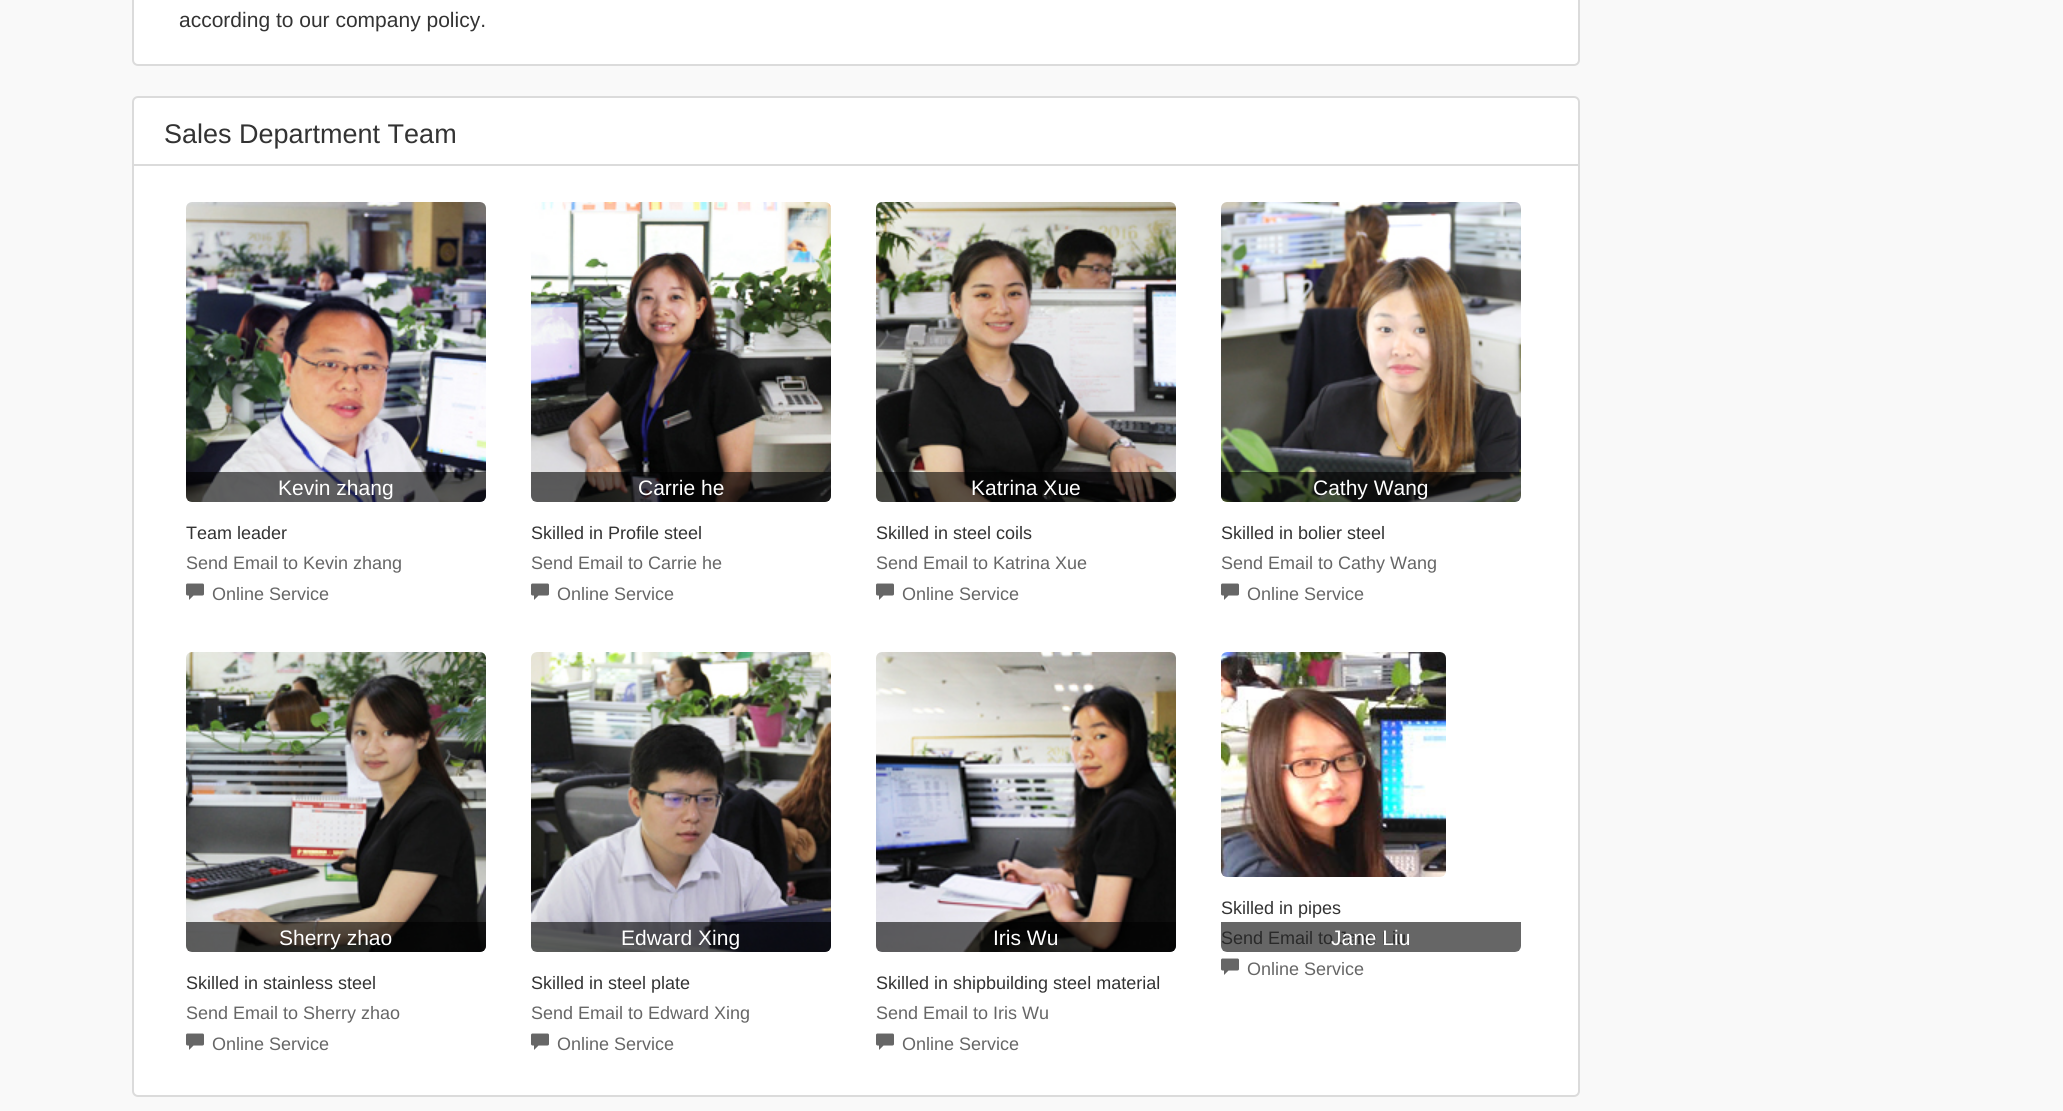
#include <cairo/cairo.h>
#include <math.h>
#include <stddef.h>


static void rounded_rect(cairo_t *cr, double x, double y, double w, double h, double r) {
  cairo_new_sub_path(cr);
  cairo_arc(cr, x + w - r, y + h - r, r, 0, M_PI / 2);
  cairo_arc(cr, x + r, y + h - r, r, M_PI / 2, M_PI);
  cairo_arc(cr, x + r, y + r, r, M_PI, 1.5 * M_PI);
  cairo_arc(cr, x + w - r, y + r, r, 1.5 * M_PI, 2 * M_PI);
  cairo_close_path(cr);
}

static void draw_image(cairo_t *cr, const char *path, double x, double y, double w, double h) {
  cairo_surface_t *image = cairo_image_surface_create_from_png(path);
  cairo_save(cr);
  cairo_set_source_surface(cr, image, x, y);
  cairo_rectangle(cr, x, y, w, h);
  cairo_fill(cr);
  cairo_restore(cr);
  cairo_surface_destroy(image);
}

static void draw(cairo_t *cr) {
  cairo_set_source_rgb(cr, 249 / 255.0, 249 / 255.0, 249 / 255.0);
  cairo_paint(cr);
  cairo_set_source_rgb(cr, 1, 1, 1);
  rounded_rect(cr, 133, -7, 1446, 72, 5);
  cairo_fill_preserve(cr);
  cairo_set_source_rgb(cr, 219 / 255.0, 219 / 255.0, 219 / 255.0);
  cairo_stroke(cr);
  cairo_set_source_rgb(cr, 1, 1, 1);
  rounded_rect(cr, 133, 97, 1446, 999, 5);
  cairo_fill_preserve(cr);
  cairo_set_source_rgb(cr, 219 / 255.0, 219 / 255.0, 219 / 255.0);
  cairo_stroke(cr);
  cairo_rectangle(cr, 134, 164, 1444, 2);
  cairo_fill(cr);
  draw_image(cr, "images/1.png", 186, 202, 300, 300);
  draw_image(cr, "images/2.png", 186, 472, 300, 30);
  draw_image(cr, "images/3.png", 186, 583, 18, 17);
  draw_image(cr, "images/4.png", 531, 202, 300, 300);
  draw_image(cr, "images/5.png", 531, 472, 300, 30);
  draw_image(cr, "images/3.png", 531, 583, 18, 17);
  draw_image(cr, "images/6.png", 876, 202, 300, 300);
  draw_image(cr, "images/7.png", 876, 472, 300, 30);
  draw_image(cr, "images/3.png", 876, 583, 18, 17);
  draw_image(cr, "images/8.png", 1221, 202, 300, 300);
  draw_image(cr, "images/9.png", 1221, 472, 300, 30);
  draw_image(cr, "images/3.png", 1221, 583, 18, 17);
  draw_image(cr, "images/10.png", 186, 652, 300, 300);
  draw_image(cr, "images/11.png", 186, 922, 300, 30);
  draw_image(cr, "images/3.png", 186, 1033, 18, 17);
  draw_image(cr, "images/12.png", 531, 652, 300, 300);
  draw_image(cr, "images/13.png", 531, 922, 300, 30);
  draw_image(cr, "images/3.png", 531, 1033, 18, 17);
  draw_image(cr, "images/14.png", 876, 652, 300, 300);
  draw_image(cr, "images/15.png", 876, 922, 300, 30);
  draw_image(cr, "images/3.png", 876, 1033, 18, 17);
  draw_image(cr, "images/16.png", 1221, 652, 225, 225);
  draw_image(cr, "images/3.png", 1221, 958, 18, 17);
  cairo_select_font_face(cr, "Liberation Sans", CAIRO_FONT_SLANT_NORMAL, CAIRO_FONT_WEIGHT_NORMAL);
  cairo_set_font_size(cr, 21);
  cairo_set_source_rgb(cr, 51 / 255.0, 51 / 255.0, 51 / 255.0);
  cairo_move_to(cr, 179, 27);
  cairo_show_text(cr, "according to our company policy.");
  cairo_set_font_size(cr, 27);
  cairo_move_to(cr, 164, 143);
  cairo_show_text(cr, "Sales Department Team");
  cairo_set_font_size(cr, 21);
  cairo_set_source_rgb(cr, 1, 1, 1);
  cairo_move_to(cr, 278, 495);
  cairo_show_text(cr, "Kevin zhang");
  cairo_set_font_size(cr, 18);
  cairo_set_source_rgb(cr, 51 / 255.0, 51 / 255.0, 51 / 255.0);
  cairo_move_to(cr, 186, 539);
  cairo_show_text(cr, "Team leader");
  cairo_set_source_rgb(cr, 102 / 255.0, 102 / 255.0, 102 / 255.0);
  cairo_move_to(cr, 186, 569);
  cairo_show_text(cr, "Send Email to Kevin zhang");
  cairo_move_to(cr, 212, 600);
  cairo_show_text(cr, "Online Service");
  cairo_set_font_size(cr, 21);
  cairo_set_source_rgb(cr, 1, 1, 1);
  cairo_move_to(cr, 638, 495);
  cairo_show_text(cr, "Carrie he");
  cairo_set_font_size(cr, 18);
  cairo_set_source_rgb(cr, 51 / 255.0, 51 / 255.0, 51 / 255.0);
  cairo_move_to(cr, 531, 539);
  cairo_show_text(cr, "Skilled in Profile steel");
  cairo_set_source_rgb(cr, 102 / 255.0, 102 / 255.0, 102 / 255.0);
  cairo_move_to(cr, 531, 569);
  cairo_show_text(cr, "Send Email to Carrie he");
  cairo_move_to(cr, 557, 600);
  cairo_show_text(cr, "Online Service");
  cairo_set_font_size(cr, 21);
  cairo_set_source_rgb(cr, 1, 1, 1);
  cairo_move_to(cr, 971, 495);
  cairo_show_text(cr, "Katrina Xue");
  cairo_set_font_size(cr, 18);
  cairo_set_source_rgb(cr, 51 / 255.0, 51 / 255.0, 51 / 255.0);
  cairo_move_to(cr, 876, 539);
  cairo_show_text(cr, "Skilled in steel coils");
  cairo_set_source_rgb(cr, 102 / 255.0, 102 / 255.0, 102 / 255.0);
  cairo_move_to(cr, 876, 569);
  cairo_show_text(cr, "Send Email to Katrina Xue");
  cairo_move_to(cr, 902, 600);
  cairo_show_text(cr, "Online Service");
  cairo_set_font_size(cr, 21);
  cairo_set_source_rgb(cr, 1, 1, 1);
  cairo_move_to(cr, 1313, 495);
  cairo_show_text(cr, "Cathy Wang");
  cairo_set_font_size(cr, 18);
  cairo_set_source_rgb(cr, 51 / 255.0, 51 / 255.0, 51 / 255.0);
  cairo_move_to(cr, 1221, 539);
  cairo_show_text(cr, "Skilled in bolier steel");
  cairo_set_source_rgb(cr, 102 / 255.0, 102 / 255.0, 102 / 255.0);
  cairo_move_to(cr, 1221, 569);
  cairo_show_text(cr, "Send Email to Cathy Wang");
  cairo_move_to(cr, 1247, 600);
  cairo_show_text(cr, "Online Service");
  cairo_set_font_size(cr, 21);
  cairo_set_source_rgb(cr, 1, 1, 1);
  cairo_move_to(cr, 279, 945);
  cairo_show_text(cr, "Sherry zhao");
  cairo_set_font_size(cr, 18);
  cairo_set_source_rgb(cr, 51 / 255.0, 51 / 255.0, 51 / 255.0);
  cairo_move_to(cr, 186, 989);
  cairo_show_text(cr, "Skilled in stainless steel");
  cairo_set_source_rgb(cr, 102 / 255.0, 102 / 255.0, 102 / 255.0);
  cairo_move_to(cr, 186, 1019);
  cairo_show_text(cr, "Send Email to Sherry zhao");
  cairo_move_to(cr, 212, 1050);
  cairo_show_text(cr, "Online Service");
  cairo_set_font_size(cr, 21);
  cairo_set_source_rgb(cr, 1, 1, 1);
  cairo_move_to(cr, 621, 945);
  cairo_show_text(cr, "Edward Xing");
  cairo_set_font_size(cr, 18);
  cairo_set_source_rgb(cr, 51 / 255.0, 51 / 255.0, 51 / 255.0);
  cairo_move_to(cr, 531, 989);
  cairo_show_text(cr, "Skilled in steel plate");
  cairo_set_source_rgb(cr, 102 / 255.0, 102 / 255.0, 102 / 255.0);
  cairo_move_to(cr, 531, 1019);
  cairo_show_text(cr, "Send Email to Edward Xing");
  cairo_move_to(cr, 557, 1050);
  cairo_show_text(cr, "Online Service");
  cairo_set_font_size(cr, 21);
  cairo_set_source_rgb(cr, 1, 1, 1);
  cairo_move_to(cr, 993, 945);
  cairo_show_text(cr, "Iris Wu");
  cairo_set_font_size(cr, 18);
  cairo_set_source_rgb(cr, 51 / 255.0, 51 / 255.0, 51 / 255.0);
  cairo_move_to(cr, 876, 989);
  cairo_show_text(cr, "Skilled in shipbuilding steel material");
  cairo_set_source_rgb(cr, 102 / 255.0, 102 / 255.0, 102 / 255.0);
  cairo_move_to(cr, 876, 1019);
  cairo_show_text(cr, "Send Email to Iris Wu");
  cairo_move_to(cr, 902, 1050);
  cairo_show_text(cr, "Online Service");
  cairo_set_source_rgb(cr, 51 / 255.0, 51 / 255.0, 51 / 255.0);
  cairo_move_to(cr, 1221, 914);
  cairo_show_text(cr, "Skilled in pipes");
  cairo_set_source_rgb(cr, 102 / 255.0, 102 / 255.0, 102 / 255.0);
  cairo_move_to(cr, 1221, 944);
  cairo_show_text(cr, "Send Email to Jane Liu");
  cairo_move_to(cr, 1247, 975);
  cairo_show_text(cr, "Online Service");
  draw_image(cr, "images/17.png", 1221, 922, 300, 30);
  cairo_set_font_size(cr, 21);
  cairo_set_source_rgb(cr, 1, 1, 1);
  cairo_move_to(cr, 1331, 945);
  cairo_show_text(cr, "Jane Liu");
}

int main(void) {
  cairo_surface_t *surface = cairo_image_surface_create(CAIRO_FORMAT_RGB24, 2063, 1111);
  cairo_t *cr = cairo_create(surface);
  cairo_font_options_t *options = cairo_font_options_create();
  cairo_font_options_set_hint_metrics(options, CAIRO_HINT_METRICS_OFF);
  cairo_font_options_set_hint_style(options, CAIRO_HINT_STYLE_NONE);
  cairo_set_font_options(cr, options);
  cairo_set_miter_limit(cr, 4);
  draw(cr);
  cairo_surface_write_to_png(surface, "out.png");
  cairo_font_options_destroy(options);
  cairo_destroy(cr);
  cairo_surface_destroy(surface);
  return 0;
}
